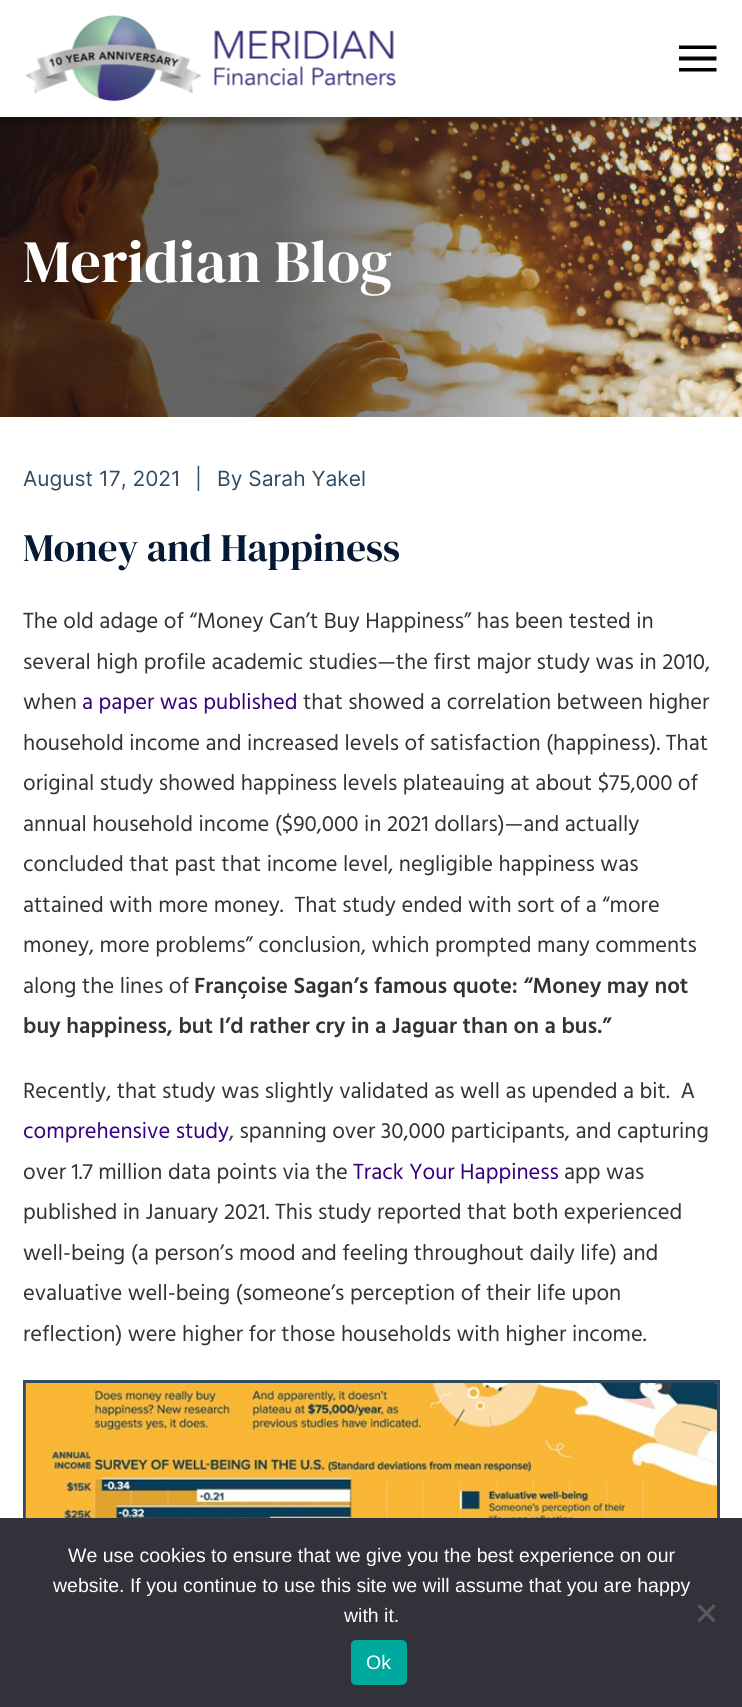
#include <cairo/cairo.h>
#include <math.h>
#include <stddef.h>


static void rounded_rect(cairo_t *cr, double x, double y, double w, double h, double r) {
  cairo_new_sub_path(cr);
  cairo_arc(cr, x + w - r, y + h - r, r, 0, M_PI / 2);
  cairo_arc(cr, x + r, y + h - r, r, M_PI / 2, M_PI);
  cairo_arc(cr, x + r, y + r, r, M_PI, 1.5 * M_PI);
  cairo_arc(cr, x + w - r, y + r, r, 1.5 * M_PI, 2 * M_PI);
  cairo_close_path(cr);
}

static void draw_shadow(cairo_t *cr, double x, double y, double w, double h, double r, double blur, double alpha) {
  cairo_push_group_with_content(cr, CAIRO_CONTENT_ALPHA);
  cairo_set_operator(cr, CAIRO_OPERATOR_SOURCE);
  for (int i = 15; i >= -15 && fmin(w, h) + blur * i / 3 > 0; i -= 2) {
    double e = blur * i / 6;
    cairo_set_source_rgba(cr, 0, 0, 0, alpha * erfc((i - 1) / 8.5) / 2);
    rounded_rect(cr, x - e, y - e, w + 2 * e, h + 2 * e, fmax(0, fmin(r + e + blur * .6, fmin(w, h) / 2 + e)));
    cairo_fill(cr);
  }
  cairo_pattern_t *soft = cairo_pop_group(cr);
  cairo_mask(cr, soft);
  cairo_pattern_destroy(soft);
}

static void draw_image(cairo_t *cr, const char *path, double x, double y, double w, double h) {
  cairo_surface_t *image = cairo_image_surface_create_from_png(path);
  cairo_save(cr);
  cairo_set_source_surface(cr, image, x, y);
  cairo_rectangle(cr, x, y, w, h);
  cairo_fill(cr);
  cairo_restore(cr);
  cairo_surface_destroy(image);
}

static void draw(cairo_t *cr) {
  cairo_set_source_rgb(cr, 1, 1, 1);
  cairo_paint(cr);
  draw_image(cr, "images/2.png", 0, 117, 742, 300);
  cairo_save(cr);
  cairo_rectangle(cr, 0, 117, 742, 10);
  cairo_clip(cr);
  cairo_set_source_rgb(cr, 0, 0, 0);
  draw_shadow(cr, 0, 6, 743, 117, 0, 3, 0.25);
  cairo_restore(cr);
  draw_image(cr, "images/1.png", 25, 15, 371, 87);
  cairo_set_source_rgb(cr, 0, 0, 0);
  cairo_set_fill_rule(cr, CAIRO_FILL_RULE_EVEN_ODD);
  cairo_new_path(cr);
  cairo_move_to(cr, 679, 45.5);
  cairo_line_to(cr, 716.5, 45.5);
  cairo_line_to(cr, 716.5, 49);
  cairo_line_to(cr, 679, 49);
  cairo_close_path(cr);
  cairo_move_to(cr, 679, 56.5);
  cairo_line_to(cr, 716.5, 56.5);
  cairo_line_to(cr, 716.5, 60.5);
  cairo_line_to(cr, 679, 60.5);
  cairo_close_path(cr);
  cairo_move_to(cr, 679, 68);
  cairo_line_to(cr, 716.5, 68);
  cairo_line_to(cr, 716.5, 71.5);
  cairo_line_to(cr, 679, 71.5);
  cairo_close_path(cr);
  cairo_fill(cr);
  cairo_rectangle(cr, 24.5, 1381.5, 694, 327);
  cairo_set_source_rgb(cr, 48 / 255.0, 74 / 255.0, 97 / 255.0);
  cairo_set_line_width(cr, 3);
  cairo_stroke(cr);
  draw_image(cr, "images/3.png", 25, 1383, 692, 135);
  cairo_set_source_rgb(cr, 50 / 255.0, 50 / 255.0, 58 / 255.0);
  cairo_rectangle(cr, 0, 1518, 742, 189);
  cairo_fill(cr);
  cairo_set_source_rgb(cr, 89 / 255.0, 89 / 255.0, 93 / 255.0);
  cairo_set_fill_rule(cr, CAIRO_FILL_RULE_WINDING);
  cairo_new_path(cr);
  cairo_move_to(cr, 713.5, 1604);
  cairo_line_to(cr, 715.5, 1606.5);
  cairo_line_to(cr, 699.5, 1622.5);
  cairo_line_to(cr, 697.5, 1620);
  cairo_close_path(cr);
  cairo_fill(cr);
  cairo_new_path(cr);
  cairo_move_to(cr, 697.5, 1606.5);
  cairo_line_to(cr, 699.5, 1604);
  cairo_line_to(cr, 715.5, 1620);
  cairo_line_to(cr, 713.5, 1622.5);
  cairo_close_path(cr);
  cairo_fill(cr);
  cairo_set_source_rgb(cr, 0, 169 / 255.0, 157 / 255.0);
  rounded_rect(cr, 351, 1640, 56, 45, 5);
  cairo_fill(cr);
  cairo_select_font_face(cr, "DM Serif Display", CAIRO_FONT_SLANT_NORMAL, CAIRO_FONT_WEIGHT_NORMAL);
  cairo_set_font_size(cr, 60);
  cairo_set_source_rgb(cr, 1, 1, 1);
  cairo_move_to(cr, 23, 282);
  cairo_show_text(cr, "Meridian Blog");
  cairo_select_font_face(cr, "Inter", CAIRO_FONT_SLANT_NORMAL, CAIRO_FONT_WEIGHT_NORMAL);
  cairo_set_font_size(cr, 21);
  cairo_set_source_rgb(cr, 48 / 255.0, 74 / 255.0, 97 / 255.0);
  cairo_move_to(cr, 23, 486);
  cairo_show_text(cr, "August 17, 2021");
  cairo_move_to(cr, 195, 486);
  cairo_show_text(cr, "|");
  cairo_move_to(cr, 217, 486);
  cairo_show_text(cr, "By Sarah Yakel");
  cairo_select_font_face(cr, "DM Serif Display", CAIRO_FONT_SLANT_NORMAL, CAIRO_FONT_WEIGHT_NORMAL);
  cairo_set_font_size(cr, 39);
  cairo_set_source_rgb(cr, 5 / 255.0, 25 / 255.0, 52 / 255.0);
  cairo_move_to(cr, 23, 561);
  cairo_show_text(cr, "Money and Happiness");
  cairo_select_font_face(cr, "Hind", CAIRO_FONT_SLANT_NORMAL, CAIRO_FONT_WEIGHT_NORMAL);
  cairo_set_font_size(cr, 22.5);
  cairo_set_source_rgb(cr, 51 / 255.0, 51 / 255.0, 51 / 255.0);
  cairo_move_to(cr, 23, 628);
  cairo_show_text(cr, "The old adage of “Money Can’t Buy Happiness” has been tested in");
  cairo_move_to(cr, 23, 669);
  cairo_show_text(cr, "several high profile academic studies—the first major study was in 2010,");
  cairo_move_to(cr, 23, 709);
  cairo_show_text(cr, "when");
  cairo_set_source_rgb(cr, 55 / 255.0, 0, 127 / 255.0);
  cairo_move_to(cr, 82, 709);
  cairo_show_text(cr, "a paper was published");
  cairo_set_source_rgb(cr, 51 / 255.0, 51 / 255.0, 51 / 255.0);
  cairo_move_to(cr, 303, 709);
  cairo_show_text(cr, "that showed a correlation between higher");
  cairo_move_to(cr, 23, 750);
  cairo_show_text(cr, "household income and increased levels of satisfaction (happiness). That");
  cairo_move_to(cr, 23, 790);
  cairo_show_text(cr, "original study showed happiness levels plateauing at about $75,000 of");
  cairo_move_to(cr, 23, 831);
  cairo_show_text(cr, "annual household income ($90,000 in 2021 dollars)—and actually");
  cairo_move_to(cr, 23, 871);
  cairo_show_text(cr, "concluded that past that income level, negligible happiness was");
  cairo_move_to(cr, 23, 912);
  cairo_show_text(cr, "attained with more money.  That study ended with sort of a “more");
  cairo_move_to(cr, 23, 952);
  cairo_show_text(cr, "money, more problems” conclusion, which prompted many comments");
  cairo_move_to(cr, 23, 993);
  cairo_show_text(cr, "along the lines of");
  cairo_select_font_face(cr, "Hind SemiBold", CAIRO_FONT_SLANT_NORMAL, CAIRO_FONT_WEIGHT_NORMAL);
  cairo_move_to(cr, 194, 993);
  cairo_show_text(cr, "Françoise Sagan’s famous quote: “Money may not");
  cairo_move_to(cr, 23, 1033);
  cairo_show_text(cr, "buy happiness, but I’d rather cry in a Jaguar than on a bus.”");
  cairo_select_font_face(cr, "Hind", CAIRO_FONT_SLANT_NORMAL, CAIRO_FONT_WEIGHT_NORMAL);
  cairo_move_to(cr, 23, 1098);
  cairo_show_text(cr, "Recently, that study was slightly validated as well as upended a bit.  A");
  cairo_move_to(cr, 229, 1138);
  cairo_show_text(cr, ", spanning over 30,000 participants, and capturing");
  cairo_set_source_rgb(cr, 55 / 255.0, 0, 127 / 255.0);
  cairo_move_to(cr, 23, 1138);
  cairo_show_text(cr, "comprehensive study");
  cairo_set_source_rgb(cr, 51 / 255.0, 51 / 255.0, 51 / 255.0);
  cairo_move_to(cr, 23, 1179);
  cairo_show_text(cr, "over 1.7 million data points via the");
  cairo_set_source_rgb(cr, 55 / 255.0, 0, 127 / 255.0);
  cairo_move_to(cr, 353, 1179);
  cairo_show_text(cr, "Track Your Happiness");
  cairo_set_source_rgb(cr, 51 / 255.0, 51 / 255.0, 51 / 255.0);
  cairo_move_to(cr, 564, 1179);
  cairo_show_text(cr, "app was");
  cairo_move_to(cr, 23, 1219);
  cairo_show_text(cr, "published in January 2021. This study reported that both experienced");
  cairo_move_to(cr, 23, 1260);
  cairo_show_text(cr, "well-being (a person’s mood and feeling throughout daily life) and");
  cairo_move_to(cr, 23, 1300);
  cairo_show_text(cr, "evaluative well-being (someone’s perception of their life upon");
  cairo_move_to(cr, 23, 1341);
  cairo_show_text(cr, "reflection) were higher for those households with higher income.");
  cairo_select_font_face(cr, "Liberation Sans", CAIRO_FONT_SLANT_NORMAL, CAIRO_FONT_WEIGHT_NORMAL);
  cairo_set_font_size(cr, 19.5);
  cairo_set_source_rgb(cr, 1, 1, 1);
  cairo_move_to(cr, 68, 1562);
  cairo_show_text(cr, "We use cookies to ensure that we give you the best experience on our");
  cairo_move_to(cr, 53, 1592);
  cairo_show_text(cr, "website. If you continue to use this site we will assume that you are happy");
  cairo_move_to(cr, 344, 1622);
  cairo_show_text(cr, "with it.");
  cairo_move_to(cr, 366, 1669);
  cairo_show_text(cr, "Ok");
}

int main(void) {
  cairo_surface_t *surface = cairo_image_surface_create(CAIRO_FORMAT_RGB24, 742, 1707);
  cairo_t *cr = cairo_create(surface);
  cairo_font_options_t *options = cairo_font_options_create();
  cairo_font_options_set_hint_metrics(options, CAIRO_HINT_METRICS_OFF);
  cairo_font_options_set_hint_style(options, CAIRO_HINT_STYLE_NONE);
  cairo_set_font_options(cr, options);
  cairo_set_miter_limit(cr, 4);
  draw(cr);
  cairo_surface_write_to_png(surface, "out.png");
  cairo_font_options_destroy(options);
  cairo_destroy(cr);
  cairo_surface_destroy(surface);
  return 0;
}
